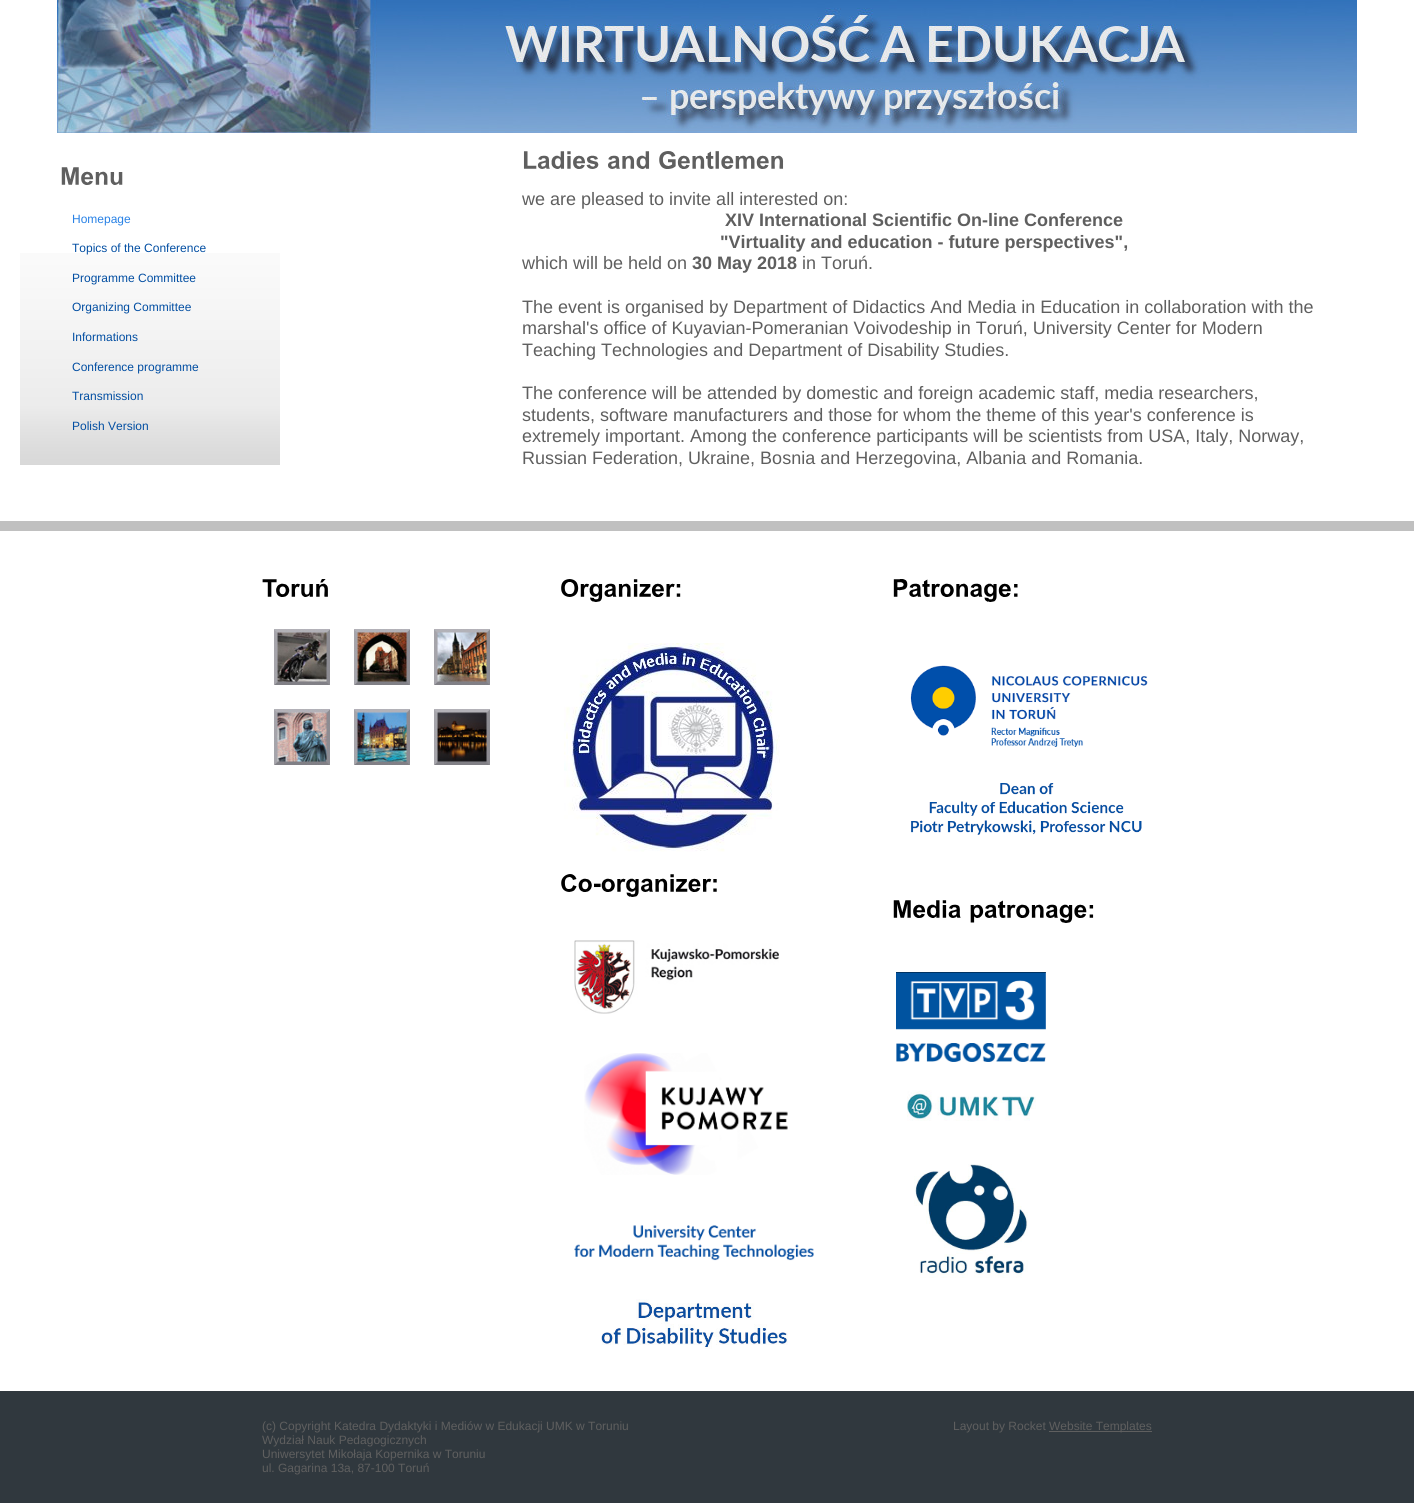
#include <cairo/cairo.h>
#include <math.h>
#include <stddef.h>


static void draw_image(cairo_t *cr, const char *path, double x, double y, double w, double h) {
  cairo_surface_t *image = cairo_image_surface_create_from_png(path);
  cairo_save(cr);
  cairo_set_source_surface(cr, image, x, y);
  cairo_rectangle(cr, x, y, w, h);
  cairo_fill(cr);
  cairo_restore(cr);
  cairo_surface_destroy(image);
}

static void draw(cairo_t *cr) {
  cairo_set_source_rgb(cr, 1, 1, 1);
  cairo_paint(cr);
  draw_image(cr, "images/1.png", 57, 0, 1300, 133);
  draw_image(cr, "images/2.png", 20, 253, 260, 212);
  draw_image(cr, "images/3.png", 61, 167, 62, 18);
  draw_image(cr, "images/4.png", 523, 151, 76, 18);
  draw_image(cr, "images/5.png", 608, 151, 42, 18);
  draw_image(cr, "images/6.png", 659, 151, 125, 18);
  cairo_set_source_rgb(cr, 192 / 255.0, 192 / 255.0, 192 / 255.0);
  cairo_rectangle(cr, 0, 521, 1414, 10);
  cairo_fill(cr);
  draw_image(cr, "images/7.png", 262, 579, 66, 18);
  draw_image(cr, "images/8.png", 274, 629, 56, 56);
  draw_image(cr, "images/9.png", 354, 629, 56, 56);
  draw_image(cr, "images/10.png", 434, 629, 56, 56);
  draw_image(cr, "images/11.png", 274, 709, 56, 56);
  draw_image(cr, "images/12.png", 354, 709, 56, 56);
  draw_image(cr, "images/13.png", 434, 709, 56, 56);
  draw_image(cr, "images/14.png", 561, 579, 120, 23);
  draw_image(cr, "images/15.png", 564, 643, 216, 209);
  draw_image(cr, "images/16.png", 561, 874, 156, 23);
  draw_image(cr, "images/17.png", 574, 940, 205, 74);
  draw_image(cr, "images/18.png", 584, 1053, 204, 122);
  draw_image(cr, "images/19.png", 574, 1225, 240, 36);
  draw_image(cr, "images/20.png", 600, 1299, 188, 50);
  draw_image(cr, "images/21.png", 893, 579, 125, 23);
  draw_image(cr, "images/22.png", 910, 665, 238, 82);
  draw_image(cr, "images/23.png", 911, 783, 231, 52);
  draw_image(cr, "images/24.png", 893, 900, 68, 18);
  draw_image(cr, "images/25.png", 970, 900, 124, 23);
  draw_image(cr, "images/26.png", 896, 972, 150, 90);
  draw_image(cr, "images/27.png", 907, 1090, 129, 31);
  draw_image(cr, "images/28.png", 914, 1164, 114, 114);
  cairo_set_source_rgb(cr, 48 / 255.0, 56 / 255.0, 62 / 255.0);
  cairo_rectangle(cr, 0, 1391, 1414, 112);
  cairo_fill(cr);
  cairo_set_source_rgb(cr, 95 / 255.0, 95 / 255.0, 95 / 255.0);
  cairo_rectangle(cr, 1049, 1431, 103, 1);
  cairo_fill(cr);
  cairo_select_font_face(cr, "Liberation Sans", CAIRO_FONT_SLANT_NORMAL, CAIRO_FONT_WEIGHT_NORMAL);
  cairo_set_font_size(cr, 12);
  cairo_set_source_rgb(cr, 40 / 255.0, 129 / 255.0, 229 / 255.0);
  cairo_move_to(cr, 72, 223);
  cairo_show_text(cr, "Homepage");
  cairo_set_source_rgb(cr, 2 / 255.0, 78 / 255.0, 162 / 255.0);
  cairo_move_to(cr, 72, 252);
  cairo_show_text(cr, "Topics of the Conference");
  cairo_move_to(cr, 72, 282);
  cairo_show_text(cr, "Programme Committee");
  cairo_move_to(cr, 72, 311);
  cairo_show_text(cr, "Organizing Committee");
  cairo_move_to(cr, 72, 341);
  cairo_show_text(cr, "Informations");
  cairo_move_to(cr, 72, 371);
  cairo_show_text(cr, "Conference programme");
  cairo_move_to(cr, 72, 400);
  cairo_show_text(cr, "Transmission");
  cairo_move_to(cr, 72, 430);
  cairo_show_text(cr, "Polish Version");
  cairo_set_font_size(cr, 18);
  cairo_set_source_rgb(cr, 95 / 255.0, 95 / 255.0, 95 / 255.0);
  cairo_move_to(cr, 522, 205);
  cairo_show_text(cr, "we are pleased to invite all interested on:");
  cairo_select_font_face(cr, "Liberation Sans", CAIRO_FONT_SLANT_NORMAL, CAIRO_FONT_WEIGHT_BOLD);
  cairo_move_to(cr, 725, 226);
  cairo_show_text(cr, "XIV International Scientific On-line Conference");
  cairo_move_to(cr, 720, 248);
  cairo_show_text(cr, "\"Virtuality and education - future perspectives\",");
  cairo_select_font_face(cr, "Liberation Sans", CAIRO_FONT_SLANT_NORMAL, CAIRO_FONT_WEIGHT_NORMAL);
  cairo_move_to(cr, 522, 269);
  cairo_show_text(cr, "which will be held on");
  cairo_select_font_face(cr, "Liberation Sans", CAIRO_FONT_SLANT_NORMAL, CAIRO_FONT_WEIGHT_BOLD);
  cairo_move_to(cr, 692, 269);
  cairo_show_text(cr, "30 May 2018");
  cairo_select_font_face(cr, "Liberation Sans", CAIRO_FONT_SLANT_NORMAL, CAIRO_FONT_WEIGHT_NORMAL);
  cairo_move_to(cr, 802, 269);
  cairo_show_text(cr, "in Toruń.");
  cairo_move_to(cr, 522, 313);
  cairo_show_text(cr, "The event is organised by Department of Didactics And Media in Education in collaboration with the");
  cairo_move_to(cr, 522, 334);
  cairo_show_text(cr, "marshal's office of Kuyavian-Pomeranian Voivodeship in Toruń, University Center for Modern");
  cairo_move_to(cr, 522, 356);
  cairo_show_text(cr, "Teaching Technologies and Department of Disability Studies.");
  cairo_move_to(cr, 522, 399);
  cairo_show_text(cr, "The conference will be attended by domestic and foreign academic staff, media researchers,");
  cairo_move_to(cr, 522, 421);
  cairo_show_text(cr, "students, software manufacturers and those for whom the theme of this year's conference is");
  cairo_move_to(cr, 522, 442);
  cairo_show_text(cr, "extremely important. Among the conference participants will be scientists from USA, Italy, Norway,");
  cairo_move_to(cr, 522, 464);
  cairo_show_text(cr, "Russian Federation, Ukraine, Bosnia and Herzegovina, Albania and Romania.");
  cairo_set_font_size(cr, 12);
  cairo_move_to(cr, 262, 1430);
  cairo_show_text(cr, "(c) Copyright Katedra Dydaktyki i Mediów w Edukacji UMK w Toruniu");
  cairo_move_to(cr, 262, 1444);
  cairo_show_text(cr, "Wydział Nauk Pedagogicznych");
  cairo_move_to(cr, 262, 1458);
  cairo_show_text(cr, "Uniwersytet Mikołaja Kopernika w Toruniu");
  cairo_move_to(cr, 262, 1472);
  cairo_show_text(cr, "ul. Gagarina 13a, 87-100 Toruń");
  cairo_move_to(cr, 953, 1430);
  cairo_show_text(cr, "Layout by Rocket");
  cairo_move_to(cr, 1049, 1430);
  cairo_show_text(cr, "Website Templates");
}

int main(void) {
  cairo_surface_t *surface = cairo_image_surface_create(CAIRO_FORMAT_RGB24, 1414, 1503);
  cairo_t *cr = cairo_create(surface);
  cairo_font_options_t *options = cairo_font_options_create();
  cairo_font_options_set_hint_metrics(options, CAIRO_HINT_METRICS_OFF);
  cairo_font_options_set_hint_style(options, CAIRO_HINT_STYLE_NONE);
  cairo_set_font_options(cr, options);
  cairo_set_miter_limit(cr, 4);
  draw(cr);
  cairo_surface_write_to_png(surface, "out.png");
  cairo_font_options_destroy(options);
  cairo_destroy(cr);
  cairo_surface_destroy(surface);
  return 0;
}
